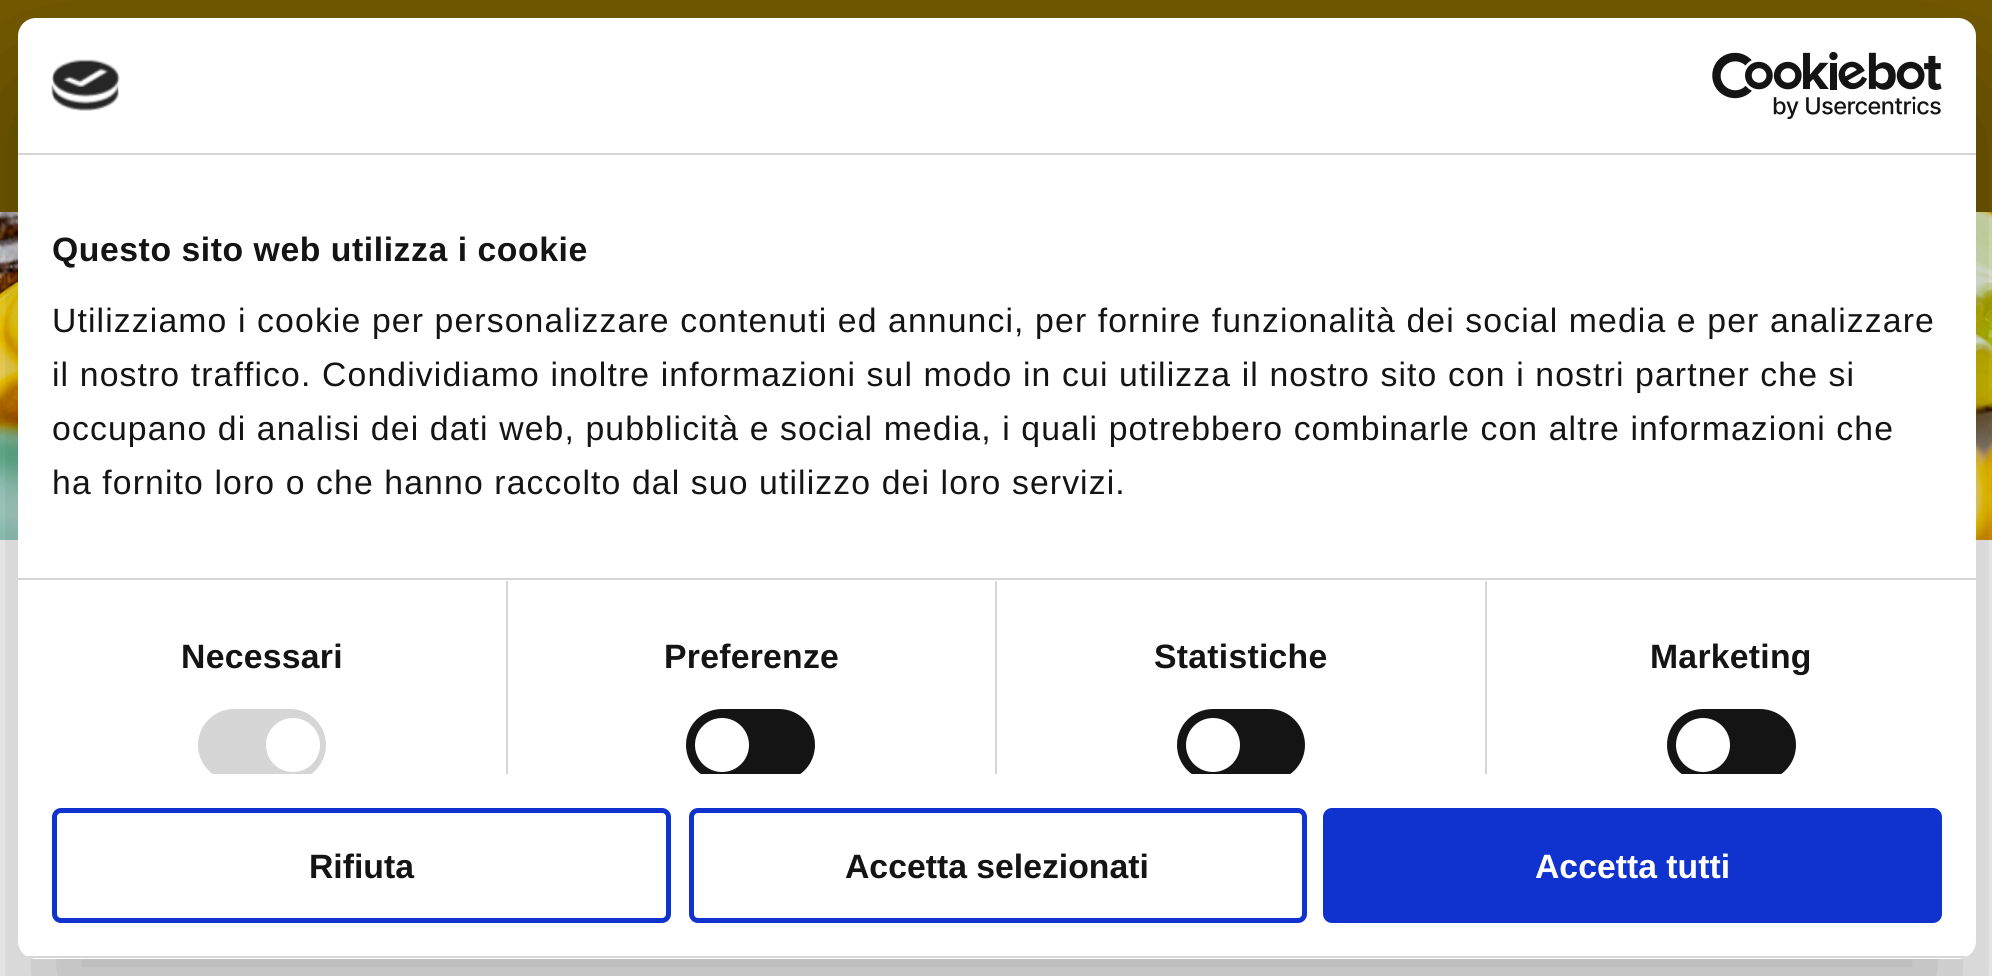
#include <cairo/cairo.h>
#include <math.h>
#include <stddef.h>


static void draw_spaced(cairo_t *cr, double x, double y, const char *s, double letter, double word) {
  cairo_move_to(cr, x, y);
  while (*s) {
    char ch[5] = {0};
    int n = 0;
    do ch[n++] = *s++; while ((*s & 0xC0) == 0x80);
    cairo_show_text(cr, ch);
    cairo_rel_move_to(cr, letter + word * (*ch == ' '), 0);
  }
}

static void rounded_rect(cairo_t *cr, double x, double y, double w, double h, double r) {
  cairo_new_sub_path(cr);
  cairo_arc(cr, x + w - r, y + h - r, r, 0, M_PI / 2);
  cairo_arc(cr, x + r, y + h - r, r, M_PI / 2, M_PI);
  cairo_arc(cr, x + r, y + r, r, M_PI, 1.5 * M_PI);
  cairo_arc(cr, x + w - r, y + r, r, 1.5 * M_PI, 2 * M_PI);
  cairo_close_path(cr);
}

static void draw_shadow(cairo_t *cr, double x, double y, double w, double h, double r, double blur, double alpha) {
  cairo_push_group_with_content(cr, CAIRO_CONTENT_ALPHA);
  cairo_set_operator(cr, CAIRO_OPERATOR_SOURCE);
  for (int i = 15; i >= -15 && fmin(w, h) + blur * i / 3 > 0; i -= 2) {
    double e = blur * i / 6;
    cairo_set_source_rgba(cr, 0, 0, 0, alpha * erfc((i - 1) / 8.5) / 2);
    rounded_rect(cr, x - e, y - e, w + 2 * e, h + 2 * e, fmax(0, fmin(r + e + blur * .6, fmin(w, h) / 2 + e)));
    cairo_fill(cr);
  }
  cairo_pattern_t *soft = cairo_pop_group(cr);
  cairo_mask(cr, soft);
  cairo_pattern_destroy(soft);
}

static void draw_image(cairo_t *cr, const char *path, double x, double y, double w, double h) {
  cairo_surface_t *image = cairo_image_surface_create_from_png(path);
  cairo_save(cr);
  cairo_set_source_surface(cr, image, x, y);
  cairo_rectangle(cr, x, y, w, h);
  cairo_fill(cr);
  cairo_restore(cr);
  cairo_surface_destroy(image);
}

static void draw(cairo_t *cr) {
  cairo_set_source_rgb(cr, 1, 1, 1);
  cairo_paint(cr);
  cairo_set_source_rgb(cr, 115 / 255.0, 89 / 255.0, 0);
  cairo_rectangle(cr, 0, 0, 1992, 212);
  cairo_fill(cr);
  draw_image(cr, "images/1.png", 0, 212, 1992, 328);
  cairo_set_source_rgb(cr, 0, 0, 0);
  draw_shadow(cr, 18, 90, 1958, 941, 18, 76.5, 0.3);
  cairo_set_source_rgb(cr, 1, 1, 1);
  rounded_rect(cr, 18, 18, 1958, 941, 18);
  cairo_fill(cr);
  cairo_set_source_rgb(cr, 214 / 255.0, 214 / 255.0, 214 / 255.0);
  cairo_rectangle(cr, 18, 153, 1958, 2);
  cairo_fill(cr);
  draw_image(cr, "images/2.png", 51, 59, 69, 52);
  draw_image(cr, "images/3.png", 1712, 52, 230, 67);
  cairo_rectangle(cr, 18, 578, 1958, 2);
  cairo_fill(cr);
  cairo_rectangle(cr, 506, 581, 2, 193);
  cairo_fill(cr);
  cairo_save(cr);
  cairo_rectangle(cr, 18, 155, 1958, 619);
  cairo_clip(cr);
  rounded_rect(cr, 198, 709, 128, 72, 36);
  cairo_fill(cr);
  cairo_restore(cr);
  cairo_set_source_rgb(cr, 1, 1, 1);
  cairo_arc(cr, 293, 745, 27, 0, 2 * M_PI);
  cairo_fill(cr);
  cairo_set_source_rgb(cr, 214 / 255.0, 214 / 255.0, 214 / 255.0);
  cairo_rectangle(cr, 995, 581, 2, 193);
  cairo_fill(cr);
  cairo_save(cr);
  cairo_rectangle(cr, 18, 155, 1958, 619);
  cairo_clip(cr);
  cairo_set_source_rgb(cr, 20 / 255.0, 20 / 255.0, 20 / 255.0);
  rounded_rect(cr, 686, 709, 129, 72, 36);
  cairo_fill(cr);
  cairo_restore(cr);
  cairo_set_source_rgb(cr, 1, 1, 1);
  cairo_arc(cr, 722, 745, 27, 0, 2 * M_PI);
  cairo_fill(cr);
  cairo_set_source_rgb(cr, 214 / 255.0, 214 / 255.0, 214 / 255.0);
  cairo_rectangle(cr, 1485, 581, 2, 193);
  cairo_fill(cr);
  cairo_save(cr);
  cairo_rectangle(cr, 18, 155, 1958, 619);
  cairo_clip(cr);
  cairo_set_source_rgb(cr, 20 / 255.0, 20 / 255.0, 20 / 255.0);
  rounded_rect(cr, 1177, 709, 128, 72, 36);
  cairo_fill(cr);
  cairo_restore(cr);
  cairo_set_source_rgb(cr, 1, 1, 1);
  cairo_arc(cr, 1213, 745, 27, 0, 2 * M_PI);
  cairo_fill(cr);
  cairo_save(cr);
  cairo_rectangle(cr, 18, 155, 1958, 619);
  cairo_clip(cr);
  cairo_set_source_rgb(cr, 20 / 255.0, 20 / 255.0, 20 / 255.0);
  rounded_rect(cr, 1667, 709, 129, 72, 36);
  cairo_fill(cr);
  cairo_restore(cr);
  cairo_arc(cr, 1703, 745, 27, 0, 2 * M_PI);
  cairo_fill(cr);
  cairo_save(cr);
  rounded_rect(cr, 18, 18, 1958, 941, 18);
  cairo_clip(cr);
  cairo_set_source_rgb(cr, 214 / 255.0, 214 / 255.0, 214 / 255.0);
  cairo_rectangle(cr, 18, 956, 1958, 2);
  cairo_fill(cr);
  cairo_restore(cr);
  rounded_rect(cr, 54.5, 810.5, 614, 110, 6.5);
  cairo_set_source_rgb(cr, 16 / 255.0, 50 / 255.0, 207 / 255.0);
  cairo_set_line_width(cr, 5);
  cairo_stroke(cr);
  rounded_rect(cr, 691.5, 810.5, 613, 110, 6.5);
  cairo_stroke(cr);
  rounded_rect(cr, 1325.5, 810.5, 614, 110, 6.5);
  cairo_fill_preserve(cr);
  cairo_stroke(cr);
  cairo_select_font_face(cr, "Liberation Sans", CAIRO_FONT_SLANT_NORMAL, CAIRO_FONT_WEIGHT_BOLD);
  cairo_set_font_size(cr, 33.75);
  cairo_set_source_rgb(cr, 20 / 255.0, 20 / 255.0, 20 / 255.0);
  draw_spaced(cr, 52, 261, "Questo sito web utilizza i cookie", 0.55, 0);
  cairo_select_font_face(cr, "Liberation Sans", CAIRO_FONT_SLANT_NORMAL, CAIRO_FONT_WEIGHT_NORMAL);
  draw_spaced(cr, 52, 332, "Utilizziamo i cookie per personalizzare contenuti ed annunci, per fornire funzionalità dei social media e per analizzare", 1.12, 0);
  draw_spaced(cr, 52, 386, "il nostro traffico. Condividiamo inoltre informazioni sul modo in cui utilizza il nostro sito con i nostri partner che si", 1.12, 0);
  draw_spaced(cr, 52, 440, "occupano di analisi dei dati web, pubblicità e social media, i quali potrebbero combinarle con altre informazioni che", 1.12, 0);
  draw_spaced(cr, 52, 494, "ha fornito loro o che hanno raccolto dal suo utilizzo dei loro servizi.", 1.12, 0);
  cairo_select_font_face(cr, "Liberation Sans", CAIRO_FONT_SLANT_NORMAL, CAIRO_FONT_WEIGHT_BOLD);
  draw_spaced(cr, 181, 668, "Necessari", 0.25, 0);
  draw_spaced(cr, 664, 668, "Preferenze", 0.25, 0);
  draw_spaced(cr, 1154, 668, "Statistiche", 0.25, 0);
  draw_spaced(cr, 1650, 668, "Marketing", 0.25, 0);
  cairo_move_to(cr, 309, 878);
  cairo_show_text(cr, "Rifiuta");
  cairo_move_to(cr, 845, 878);
  cairo_show_text(cr, "Accetta selezionati");
  cairo_set_source_rgb(cr, 1, 1, 1);
  cairo_move_to(cr, 1535, 878);
  cairo_show_text(cr, "Accetta tutti");
}

int main(void) {
  cairo_surface_t *surface = cairo_image_surface_create(CAIRO_FORMAT_RGB24, 1992, 976);
  cairo_t *cr = cairo_create(surface);
  cairo_font_options_t *options = cairo_font_options_create();
  cairo_font_options_set_hint_metrics(options, CAIRO_HINT_METRICS_OFF);
  cairo_font_options_set_hint_style(options, CAIRO_HINT_STYLE_NONE);
  cairo_set_font_options(cr, options);
  cairo_set_miter_limit(cr, 4);
  draw(cr);
  cairo_surface_write_to_png(surface, "out.png");
  cairo_font_options_destroy(options);
  cairo_destroy(cr);
  cairo_surface_destroy(surface);
  return 0;
}
